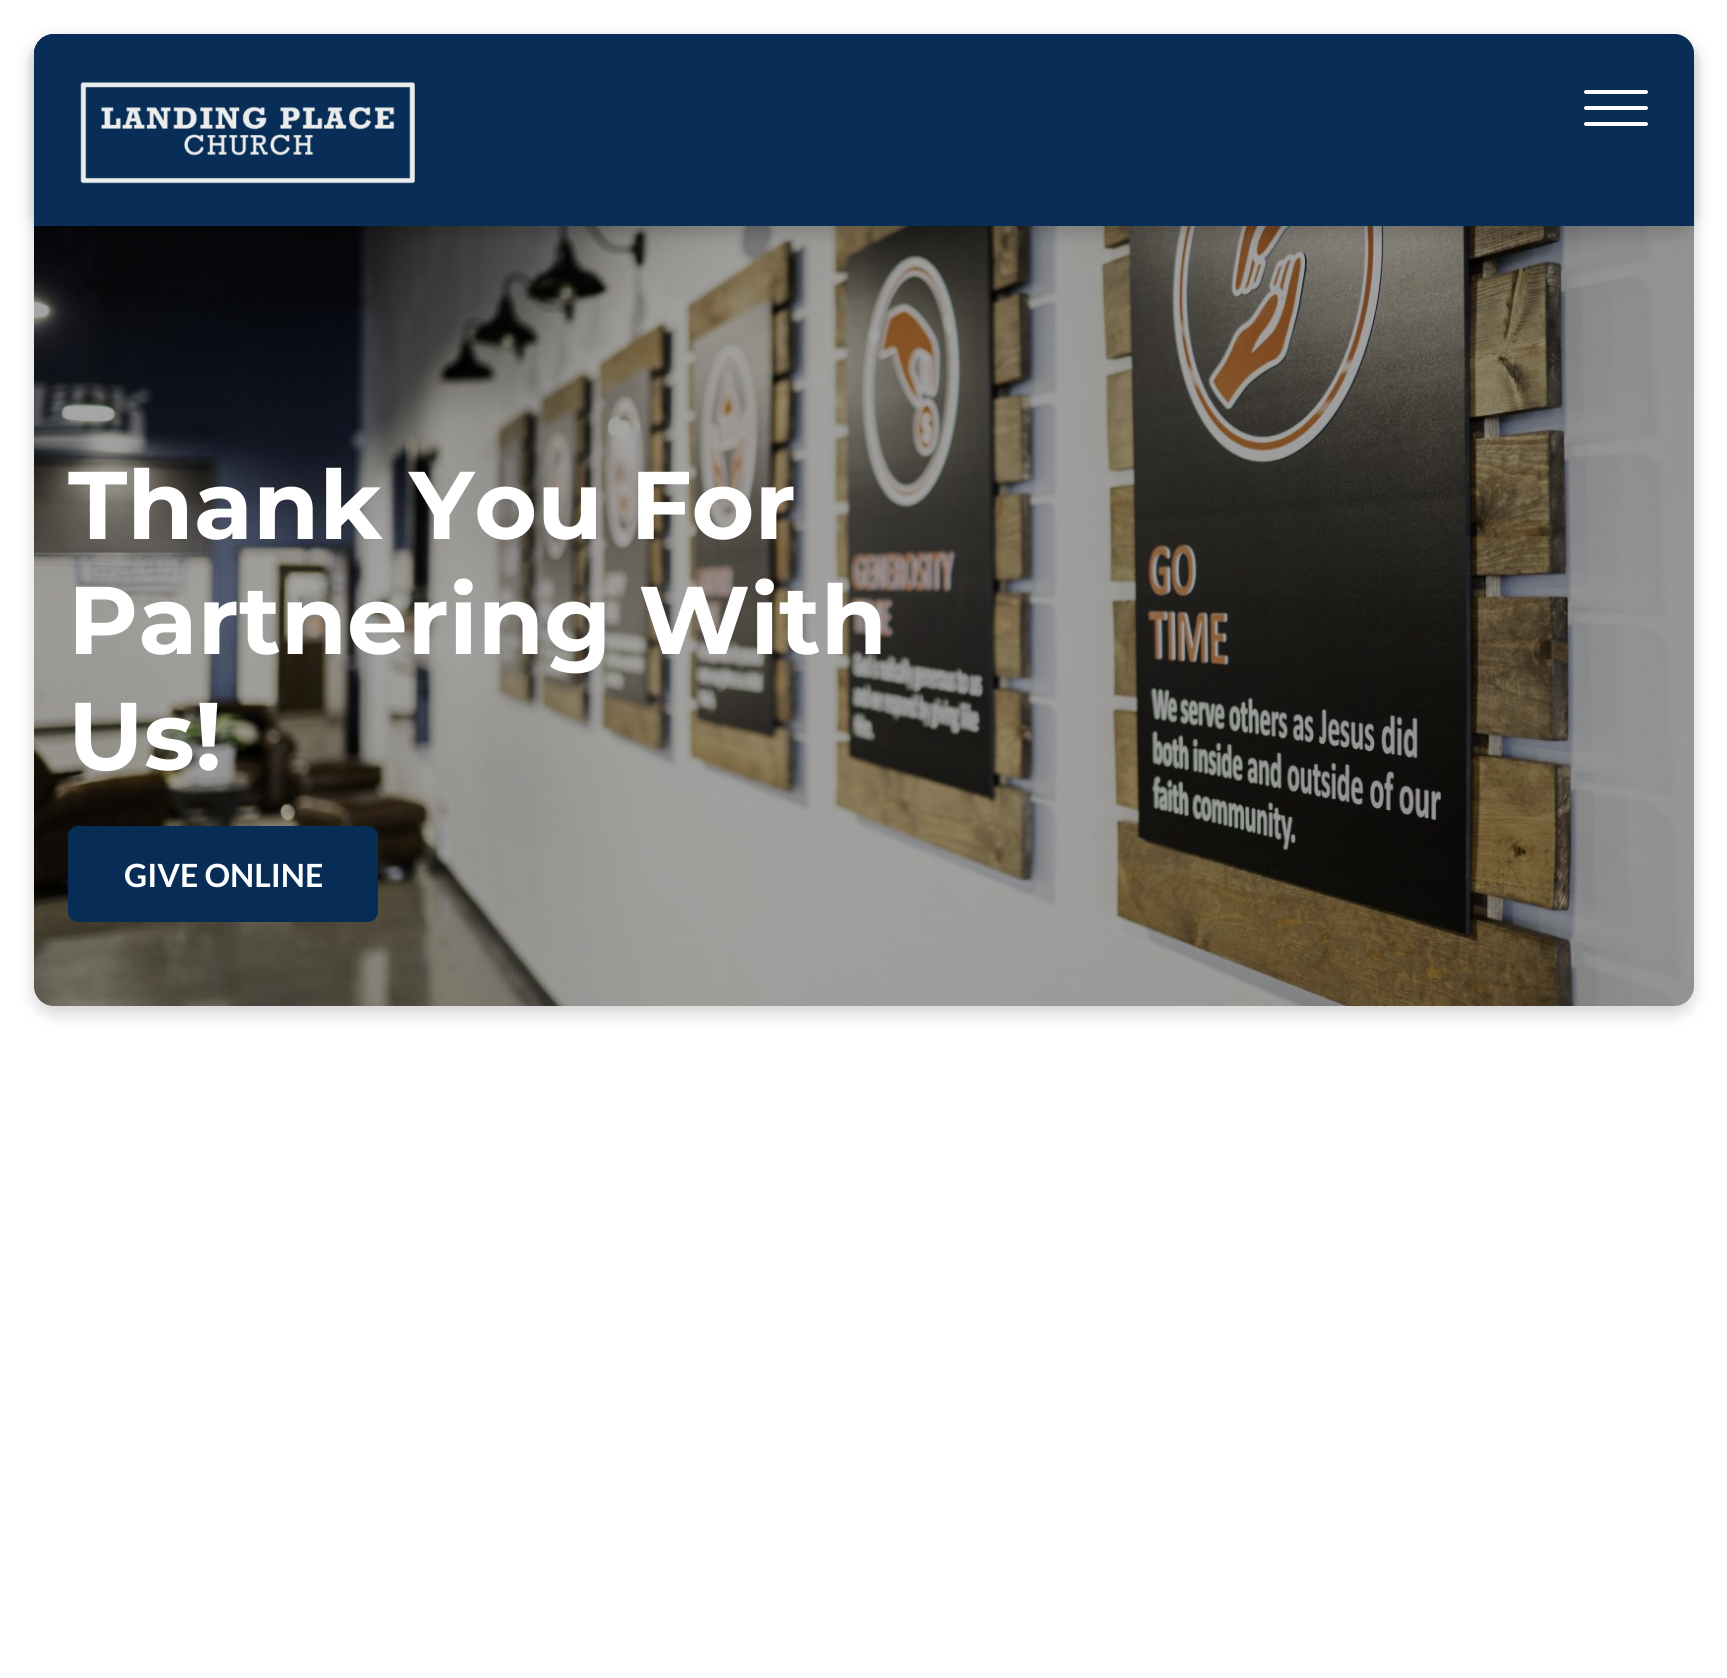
#include <cairo/cairo.h>
#include <math.h>
#include <stddef.h>


static void rounded_rect(cairo_t *cr, double x, double y, double w, double h, double r) {
  cairo_new_sub_path(cr);
  cairo_arc(cr, x + w - r, y + h - r, r, 0, M_PI / 2);
  cairo_arc(cr, x + r, y + h - r, r, M_PI / 2, M_PI);
  cairo_arc(cr, x + r, y + r, r, M_PI, 1.5 * M_PI);
  cairo_arc(cr, x + w - r, y + r, r, 1.5 * M_PI, 2 * M_PI);
  cairo_close_path(cr);
}

static void draw_shadow(cairo_t *cr, double x, double y, double w, double h, double r, double blur, double alpha) {
  cairo_push_group_with_content(cr, CAIRO_CONTENT_ALPHA);
  cairo_set_operator(cr, CAIRO_OPERATOR_SOURCE);
  for (int i = 15; i >= -15 && fmin(w, h) + blur * i / 3 > 0; i -= 2) {
    double e = blur * i / 6;
    cairo_set_source_rgba(cr, 0, 0, 0, alpha * erfc((i - 1) / 8.5) / 2);
    rounded_rect(cr, x - e, y - e, w + 2 * e, h + 2 * e, fmax(0, fmin(r + e + blur * .6, fmin(w, h) / 2 + e)));
    cairo_fill(cr);
  }
  cairo_pattern_t *soft = cairo_pop_group(cr);
  cairo_mask(cr, soft);
  cairo_pattern_destroy(soft);
}

static void draw_image(cairo_t *cr, const char *path, double x, double y, double w, double h) {
  cairo_surface_t *image = cairo_image_surface_create_from_png(path);
  cairo_save(cr);
  cairo_set_source_surface(cr, image, x, y);
  cairo_rectangle(cr, x, y, w, h);
  cairo_fill(cr);
  cairo_restore(cr);
  cairo_surface_destroy(image);
}

static void draw(cairo_t *cr) {
  cairo_set_source_rgb(cr, 1, 1, 1);
  cairo_paint(cr);
  cairo_set_source_rgb(cr, 0, 0, 0);
  draw_shadow(cr, 34, 42, 1660, 972, 20, 8, 0.17);
  draw_image(cr, "images/2.png", 34, 34, 1660, 972);
  cairo_set_source_rgba(cr, 0, 0, 0, 0.35);
  rounded_rect(cr, 34, 34, 1660, 972, 20);
  cairo_fill(cr);
  cairo_set_source_rgb(cr, 0, 0, 0);
  draw_shadow(cr, 34, 42, 1660, 192, 20, 8, 0.17);
  cairo_set_source_rgb(cr, 8 / 255.0, 45 / 255.0, 87 / 255.0);
  cairo_new_path(cr);
  cairo_move_to(cr, 54, 34);
  cairo_line_to(cr, 1674, 34);
  cairo_curve_to(cr, 1685, 34, 1694, 43, 1694, 54);
  cairo_line_to(cr, 1694, 226);
  cairo_line_to(cr, 34, 226);
  cairo_line_to(cr, 34, 54);
  cairo_curve_to(cr, 34, 43, 43, 34, 54, 34);
  cairo_close_path(cr);
  cairo_fill(cr);
  draw_image(cr, "images/1.png", 80, 82, 335, 102);
  cairo_set_source_rgb(cr, 1, 1, 1);
  rounded_rect(cr, 1584, 90, 64, 4, 2);
  cairo_fill(cr);
  rounded_rect(cr, 1584, 106, 64, 4, 2);
  cairo_fill(cr);
  rounded_rect(cr, 1584, 122, 64, 4, 2);
  cairo_fill(cr);
  cairo_set_source_rgb(cr, 7 / 255.0, 45 / 255.0, 87 / 255.0);
  rounded_rect(cr, 68, 826, 310, 96, 10);
  cairo_fill(cr);
  cairo_select_font_face(cr, "Montserrat", CAIRO_FONT_SLANT_NORMAL, CAIRO_FONT_WEIGHT_BOLD);
  cairo_set_font_size(cr, 96);
  cairo_set_source_rgb(cr, 1, 1, 1);
  cairo_move_to(cr, 68, 539);
  cairo_show_text(cr, "Thank You For");
  cairo_move_to(cr, 68, 654);
  cairo_show_text(cr, "Partnering With");
  cairo_move_to(cr, 68, 770);
  cairo_show_text(cr, "Us!");
  cairo_select_font_face(cr, "Lato", CAIRO_FONT_SLANT_NORMAL, CAIRO_FONT_WEIGHT_BOLD);
  cairo_set_font_size(cr, 32);
  cairo_move_to(cr, 124, 887);
  cairo_show_text(cr, "GIVE ONLINE");
}

int main(void) {
  cairo_surface_t *surface = cairo_image_surface_create(CAIRO_FORMAT_RGB24, 1727, 1678);
  cairo_t *cr = cairo_create(surface);
  cairo_font_options_t *options = cairo_font_options_create();
  cairo_font_options_set_hint_metrics(options, CAIRO_HINT_METRICS_OFF);
  cairo_font_options_set_hint_style(options, CAIRO_HINT_STYLE_NONE);
  cairo_set_font_options(cr, options);
  cairo_set_miter_limit(cr, 4);
  draw(cr);
  cairo_surface_write_to_png(surface, "out.png");
  cairo_font_options_destroy(options);
  cairo_destroy(cr);
  cairo_surface_destroy(surface);
  return 0;
}
